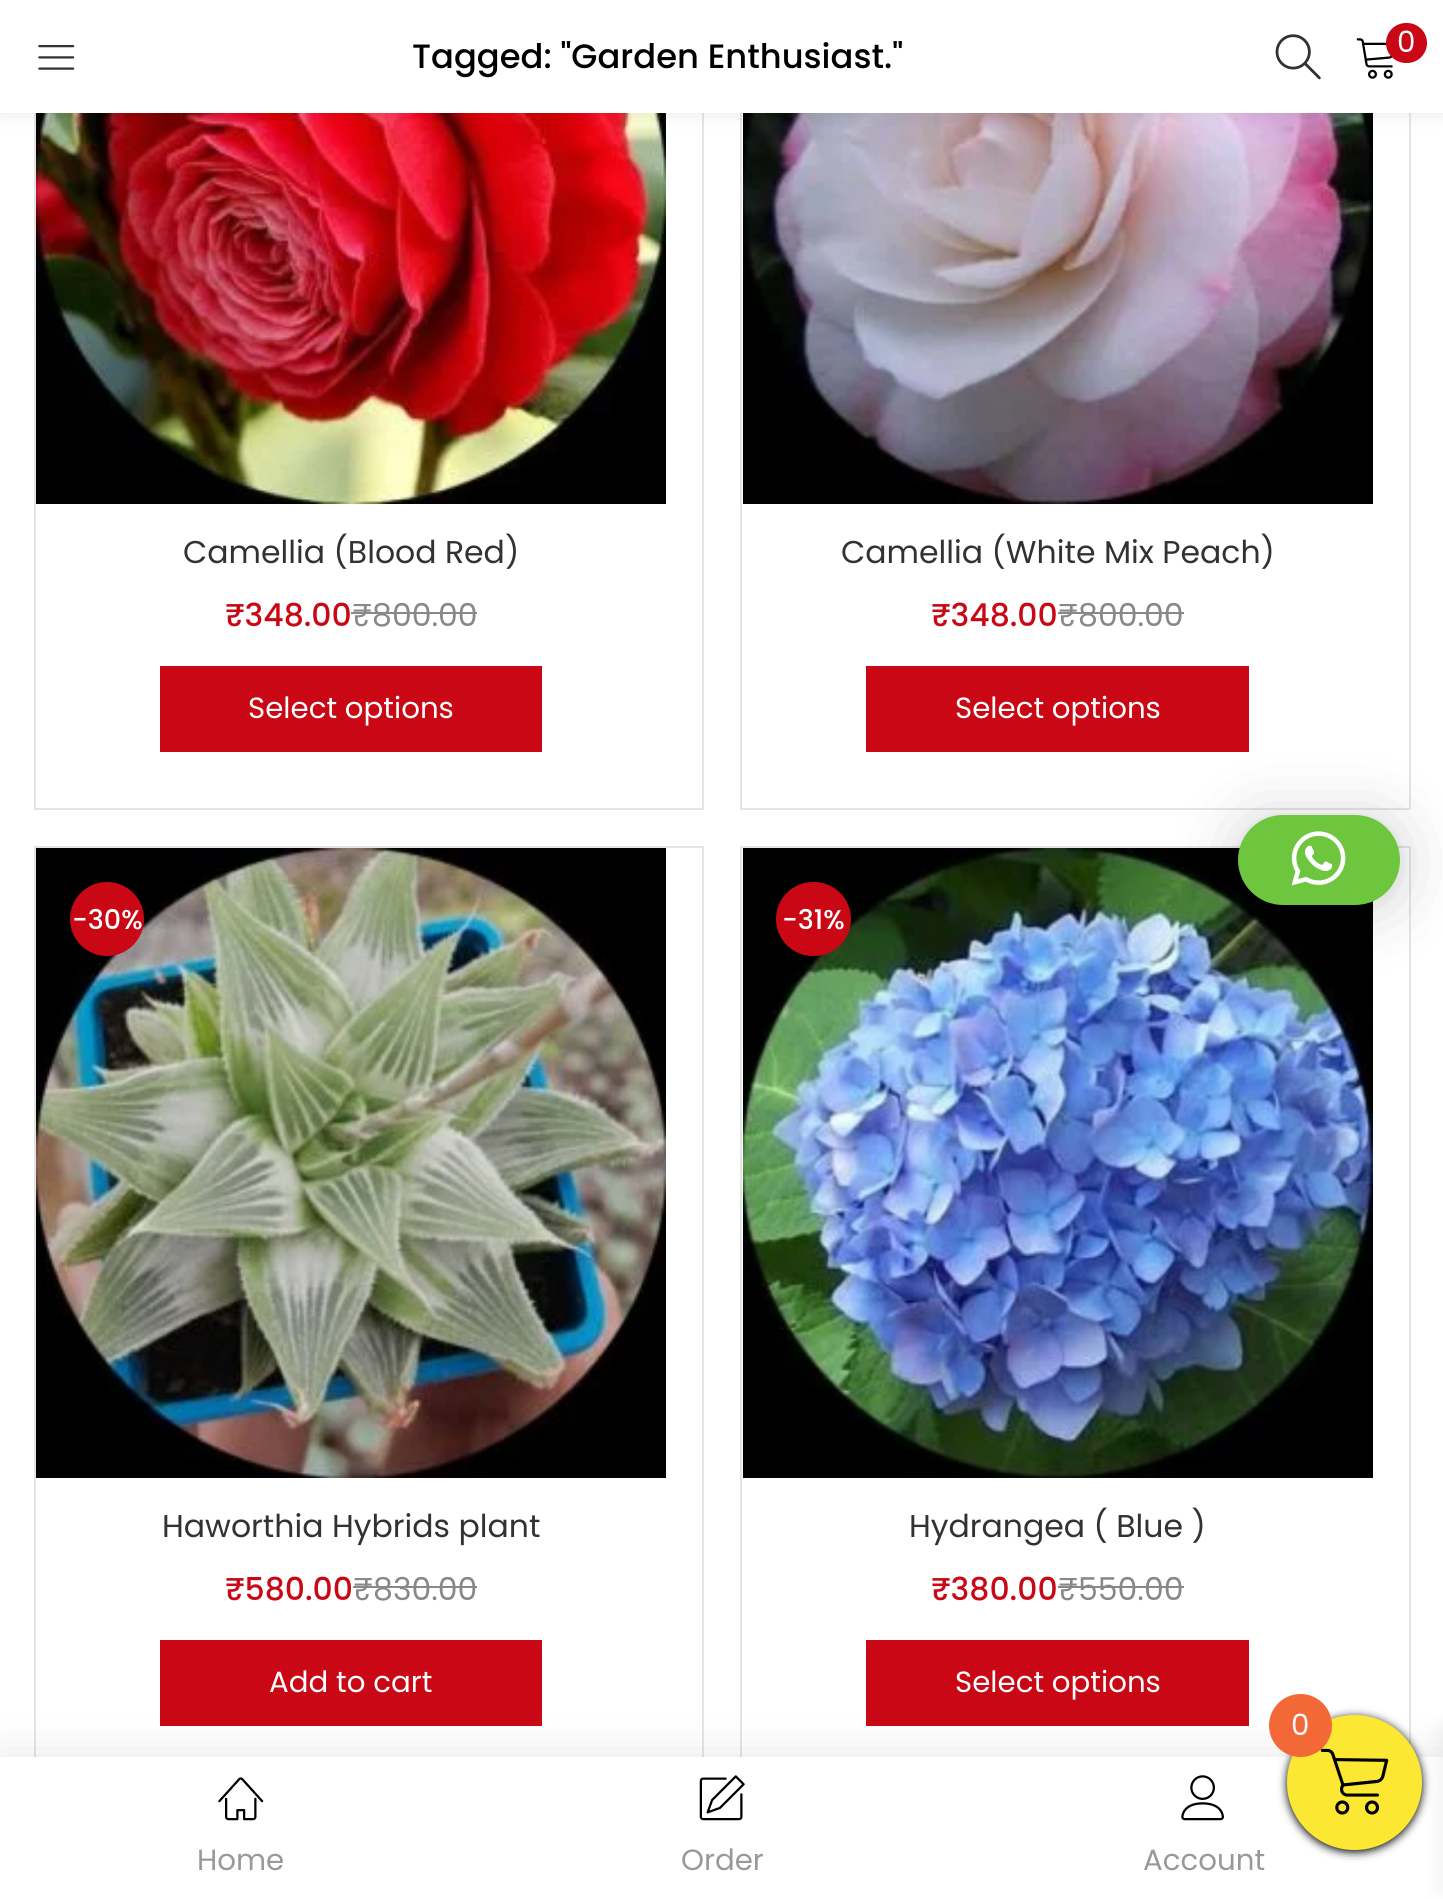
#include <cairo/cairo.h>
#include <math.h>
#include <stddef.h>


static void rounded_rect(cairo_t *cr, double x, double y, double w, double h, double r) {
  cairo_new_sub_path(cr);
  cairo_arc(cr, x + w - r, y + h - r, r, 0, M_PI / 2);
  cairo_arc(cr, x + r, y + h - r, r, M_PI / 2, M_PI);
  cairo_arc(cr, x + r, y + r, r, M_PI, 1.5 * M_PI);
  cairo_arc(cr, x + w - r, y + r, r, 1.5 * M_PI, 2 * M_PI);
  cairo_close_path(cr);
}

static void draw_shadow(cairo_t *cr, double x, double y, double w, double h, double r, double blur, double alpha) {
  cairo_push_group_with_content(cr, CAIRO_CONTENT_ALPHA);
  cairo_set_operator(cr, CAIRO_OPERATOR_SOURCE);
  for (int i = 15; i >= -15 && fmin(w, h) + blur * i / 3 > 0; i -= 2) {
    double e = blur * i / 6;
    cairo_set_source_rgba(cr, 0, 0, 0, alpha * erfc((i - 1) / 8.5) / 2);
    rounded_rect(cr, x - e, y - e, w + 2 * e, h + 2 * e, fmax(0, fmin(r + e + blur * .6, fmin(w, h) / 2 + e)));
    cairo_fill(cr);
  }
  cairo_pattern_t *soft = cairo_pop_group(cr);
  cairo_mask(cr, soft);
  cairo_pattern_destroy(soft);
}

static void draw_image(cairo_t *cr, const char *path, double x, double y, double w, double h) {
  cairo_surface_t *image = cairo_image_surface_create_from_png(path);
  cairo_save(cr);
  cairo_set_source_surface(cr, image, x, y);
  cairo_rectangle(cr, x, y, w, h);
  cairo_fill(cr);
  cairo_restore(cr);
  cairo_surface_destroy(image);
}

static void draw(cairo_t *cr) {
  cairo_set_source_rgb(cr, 1, 1, 1);
  cairo_paint(cr);
  cairo_rectangle(cr, 35, -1, 668, 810);
  cairo_set_source_rgb(cr, 229 / 255.0, 229 / 255.0, 229 / 255.0);
  cairo_stroke(cr);
  draw_image(cr, "images/4.png", 36, 113, 630, 391);
  cairo_rectangle(cr, 741, -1, 669, 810);
  cairo_stroke(cr);
  draw_image(cr, "images/5.png", 743, 113, 630, 391);
  cairo_set_source_rgb(cr, 0, 0, 0);
  draw_shadow(cr, 0, 0, 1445, 113, 0, 9, 0.1);
  cairo_set_source_rgb(cr, 1, 1, 1);
  cairo_rectangle(cr, 0, 0, 1443, 113);
  cairo_fill(cr);
  draw_image(cr, "images/1.png", 38, 45, 37, 25);
  draw_image(cr, "images/2.png", 1275, 34, 46, 46);
  draw_image(cr, "images/3.png", 1356, 38, 37, 41);
  cairo_set_source_rgb(cr, 202 / 255.0, 8 / 255.0, 21 / 255.0);
  rounded_rect(cr, 1386, 23, 41, 40, 20);
  cairo_fill(cr);
  cairo_set_source_rgb(cr, 136 / 255.0, 136 / 255.0, 136 / 255.0);
  cairo_rectangle(cr, 351, 612, 126, 2);
  cairo_fill(cr);
  cairo_set_source_rgb(cr, 202 / 255.0, 8 / 255.0, 21 / 255.0);
  cairo_rectangle(cr, 160, 666, 382, 86);
  cairo_fill(cr);
  cairo_set_source_rgb(cr, 136 / 255.0, 136 / 255.0, 136 / 255.0);
  cairo_rectangle(cr, 1058, 612, 126, 2);
  cairo_fill(cr);
  cairo_set_source_rgb(cr, 202 / 255.0, 8 / 255.0, 21 / 255.0);
  cairo_rectangle(cr, 866, 666, 383, 86);
  cairo_fill(cr);
  cairo_rectangle(cr, 35, 847, 668, 936);
  cairo_set_source_rgb(cr, 229 / 255.0, 229 / 255.0, 229 / 255.0);
  cairo_stroke(cr);
  draw_image(cr, "images/6.png", 36, 848, 630, 630);
  cairo_set_source_rgb(cr, 202 / 255.0, 8 / 255.0, 21 / 255.0);
  cairo_arc(cr, 107, 919, 37, 0, 2 * M_PI);
  cairo_fill(cr);
  cairo_set_source_rgb(cr, 136 / 255.0, 136 / 255.0, 136 / 255.0);
  cairo_rectangle(cr, 353, 1586, 124, 2);
  cairo_fill(cr);
  cairo_set_source_rgb(cr, 202 / 255.0, 8 / 255.0, 21 / 255.0);
  cairo_rectangle(cr, 160, 1640, 382, 86);
  cairo_fill(cr);
  cairo_rectangle(cr, 741, 847, 669, 936);
  cairo_set_source_rgb(cr, 229 / 255.0, 229 / 255.0, 229 / 255.0);
  cairo_stroke(cr);
  draw_image(cr, "images/7.png", 743, 848, 630, 630);
  cairo_set_source_rgb(cr, 202 / 255.0, 8 / 255.0, 21 / 255.0);
  rounded_rect(cr, 776, 882, 75, 74, 37);
  cairo_fill(cr);
  cairo_set_source_rgb(cr, 136 / 255.0, 136 / 255.0, 136 / 255.0);
  cairo_rectangle(cr, 1058, 1586, 126, 2);
  cairo_fill(cr);
  cairo_set_source_rgb(cr, 202 / 255.0, 8 / 255.0, 21 / 255.0);
  cairo_rectangle(cr, 866, 1640, 383, 86);
  cairo_fill(cr);
  cairo_set_source_rgb(cr, 0, 0, 0);
  draw_shadow(cr, 0, 1757, 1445, 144, 0, 22.5, 0.1);
  cairo_set_source_rgb(cr, 1, 1, 1);
  cairo_rectangle(cr, 0, 1757, 1443, 142);
  cairo_fill(cr);
  draw_image(cr, "images/8.png", 218, 1777, 46, 44);
  draw_image(cr, "images/9.png", 699, 1775, 46, 46);
  draw_image(cr, "images/10.png", 1181, 1775, 43, 46);
  cairo_set_source_rgb(cr, 0, 0, 0);
  draw_shadow(cr, 1238, 819, 162, 90, 45, 36, 0.16);
  draw_shadow(cr, 1238, 817, 162, 90, 45, 7, 0.06);
  cairo_set_source_rgb(cr, 109 / 255.0, 198 / 255.0, 61 / 255.0);
  rounded_rect(cr, 1238, 815, 162, 90, 45);
  cairo_fill(cr);
  draw_image(cr, "images/11.png", 1291, 831, 55, 55);
  cairo_set_source_rgb(cr, 0, 0, 0);
  draw_shadow(cr, 1287, 1717, 135, 135, 67.5, 4.5, 1);
  draw_shadow(cr, 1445, 1730, 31, 158, 0, 11, 0.1);
  cairo_set_source_rgb(cr, 252 / 255.0, 232 / 255.0, 50 / 255.0);
  cairo_arc(cr, 1354.5, 1782.5, 67.5, 0, 2 * M_PI);
  cairo_fill(cr);
  draw_image(cr, "images/12.png", 1320, 1748, 69, 67);
  cairo_set_source_rgb(cr, 242 / 255.0, 105 / 255.0, 55 / 255.0);
  cairo_arc(cr, 1300.5, 1725.5, 31.5, 0, 2 * M_PI);
  cairo_fill(cr);
  cairo_select_font_face(cr, "Poppins Medium", CAIRO_FONT_SLANT_NORMAL, CAIRO_FONT_WEIGHT_NORMAL);
  cairo_set_font_size(cr, 33.75);
  cairo_set_source_rgb(cr, 0, 0, 0);
  cairo_move_to(cr, 412, 68);
  cairo_show_text(cr, "Tagged: \"Garden Enthusiast.\"");
  cairo_select_font_face(cr, "Poppins", CAIRO_FONT_SLANT_NORMAL, CAIRO_FONT_WEIGHT_NORMAL);
  cairo_set_font_size(cr, 29.25);
  cairo_set_source_rgb(cr, 1, 1, 1);
  cairo_move_to(cr, 1397, 52);
  cairo_show_text(cr, "0");
  cairo_set_font_size(cr, 31.5);
  cairo_set_source_rgb(cr, 50 / 255.0, 50 / 255.0, 50 / 255.0);
  cairo_move_to(cr, 183, 563);
  cairo_show_text(cr, "Camellia (Blood Red)");
  cairo_select_font_face(cr, "Poppins Medium", CAIRO_FONT_SLANT_NORMAL, CAIRO_FONT_WEIGHT_NORMAL);
  cairo_set_source_rgb(cr, 202 / 255.0, 8 / 255.0, 21 / 255.0);
  cairo_move_to(cr, 225, 626);
  cairo_show_text(cr, "₹348.00");
  cairo_select_font_face(cr, "Poppins", CAIRO_FONT_SLANT_NORMAL, CAIRO_FONT_WEIGHT_NORMAL);
  cairo_set_source_rgb(cr, 136 / 255.0, 136 / 255.0, 136 / 255.0);
  cairo_move_to(cr, 352, 626);
  cairo_show_text(cr, "₹800.00");
  cairo_set_font_size(cr, 29.25);
  cairo_set_source_rgb(cr, 1, 1, 1);
  cairo_move_to(cr, 248, 718);
  cairo_show_text(cr, "Select options");
  cairo_set_font_size(cr, 31.5);
  cairo_set_source_rgb(cr, 50 / 255.0, 50 / 255.0, 50 / 255.0);
  cairo_move_to(cr, 841, 563);
  cairo_show_text(cr, "Camellia (White Mix Peach)");
  cairo_select_font_face(cr, "Poppins Medium", CAIRO_FONT_SLANT_NORMAL, CAIRO_FONT_WEIGHT_NORMAL);
  cairo_set_source_rgb(cr, 202 / 255.0, 8 / 255.0, 21 / 255.0);
  cairo_move_to(cr, 931, 626);
  cairo_show_text(cr, "₹348.00");
  cairo_select_font_face(cr, "Poppins", CAIRO_FONT_SLANT_NORMAL, CAIRO_FONT_WEIGHT_NORMAL);
  cairo_set_source_rgb(cr, 136 / 255.0, 136 / 255.0, 136 / 255.0);
  cairo_move_to(cr, 1058, 626);
  cairo_show_text(cr, "₹800.00");
  cairo_set_font_size(cr, 29.25);
  cairo_set_source_rgb(cr, 1, 1, 1);
  cairo_move_to(cr, 955, 718);
  cairo_show_text(cr, "Select options");
  cairo_select_font_face(cr, "Poppins Medium", CAIRO_FONT_SLANT_NORMAL, CAIRO_FONT_WEIGHT_NORMAL);
  cairo_set_font_size(cr, 27);
  cairo_move_to(cr, 72, 929);
  cairo_show_text(cr, "-30%");
  cairo_select_font_face(cr, "Poppins", CAIRO_FONT_SLANT_NORMAL, CAIRO_FONT_WEIGHT_NORMAL);
  cairo_set_font_size(cr, 31.5);
  cairo_set_source_rgb(cr, 50 / 255.0, 50 / 255.0, 50 / 255.0);
  cairo_move_to(cr, 162, 1537);
  cairo_show_text(cr, "Haworthia Hybrids plant");
  cairo_select_font_face(cr, "Poppins Medium", CAIRO_FONT_SLANT_NORMAL, CAIRO_FONT_WEIGHT_NORMAL);
  cairo_set_source_rgb(cr, 202 / 255.0, 8 / 255.0, 21 / 255.0);
  cairo_move_to(cr, 225, 1600);
  cairo_show_text(cr, "₹580.00");
  cairo_select_font_face(cr, "Poppins", CAIRO_FONT_SLANT_NORMAL, CAIRO_FONT_WEIGHT_NORMAL);
  cairo_set_source_rgb(cr, 136 / 255.0, 136 / 255.0, 136 / 255.0);
  cairo_move_to(cr, 353, 1600);
  cairo_show_text(cr, "₹830.00");
  cairo_set_font_size(cr, 29.25);
  cairo_set_source_rgb(cr, 1, 1, 1);
  cairo_move_to(cr, 269, 1692);
  cairo_show_text(cr, "Add to cart");
  cairo_select_font_face(cr, "Poppins Medium", CAIRO_FONT_SLANT_NORMAL, CAIRO_FONT_WEIGHT_NORMAL);
  cairo_set_font_size(cr, 27);
  cairo_move_to(cr, 782, 929);
  cairo_show_text(cr, "-31%");
  cairo_select_font_face(cr, "Poppins", CAIRO_FONT_SLANT_NORMAL, CAIRO_FONT_WEIGHT_NORMAL);
  cairo_set_font_size(cr, 31.5);
  cairo_set_source_rgb(cr, 50 / 255.0, 50 / 255.0, 50 / 255.0);
  cairo_move_to(cr, 909, 1537);
  cairo_show_text(cr, "Hydrangea ( Blue )");
  cairo_select_font_face(cr, "Poppins Medium", CAIRO_FONT_SLANT_NORMAL, CAIRO_FONT_WEIGHT_NORMAL);
  cairo_set_source_rgb(cr, 202 / 255.0, 8 / 255.0, 21 / 255.0);
  cairo_move_to(cr, 931, 1600);
  cairo_show_text(cr, "₹380.00");
  cairo_select_font_face(cr, "Poppins", CAIRO_FONT_SLANT_NORMAL, CAIRO_FONT_WEIGHT_NORMAL);
  cairo_set_source_rgb(cr, 136 / 255.0, 136 / 255.0, 136 / 255.0);
  cairo_move_to(cr, 1058, 1600);
  cairo_show_text(cr, "₹550.00");
  cairo_set_font_size(cr, 29.25);
  cairo_set_source_rgb(cr, 1, 1, 1);
  cairo_move_to(cr, 955, 1692);
  cairo_show_text(cr, "Select options");
  cairo_set_source_rgb(cr, 153 / 255.0, 153 / 255.0, 153 / 255.0);
  cairo_move_to(cr, 197, 1870);
  cairo_show_text(cr, "Home");
  cairo_move_to(cr, 681, 1870);
  cairo_show_text(cr, "Order");
  cairo_move_to(cr, 1143, 1870);
  cairo_show_text(cr, "Account");
  cairo_set_source_rgb(cr, 249 / 255.0, 249 / 255.0, 249 / 255.0);
  cairo_move_to(cr, 1291, 1735);
  cairo_show_text(cr, "0");
}

int main(void) {
  cairo_surface_t *surface = cairo_image_surface_create(CAIRO_FORMAT_RGB24, 1443, 1899);
  cairo_t *cr = cairo_create(surface);
  cairo_font_options_t *options = cairo_font_options_create();
  cairo_font_options_set_hint_metrics(options, CAIRO_HINT_METRICS_OFF);
  cairo_font_options_set_hint_style(options, CAIRO_HINT_STYLE_NONE);
  cairo_set_font_options(cr, options);
  cairo_set_miter_limit(cr, 4);
  draw(cr);
  cairo_surface_write_to_png(surface, "out.png");
  cairo_font_options_destroy(options);
  cairo_destroy(cr);
  cairo_surface_destroy(surface);
  return 0;
}
